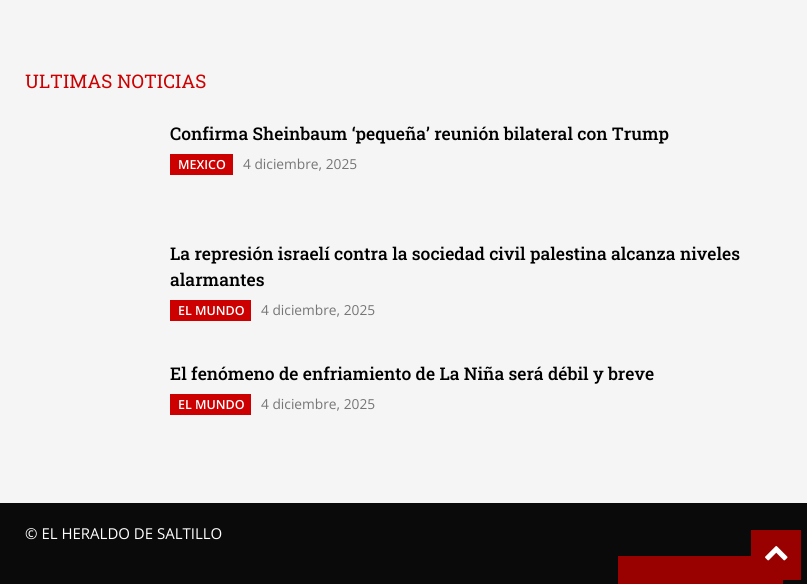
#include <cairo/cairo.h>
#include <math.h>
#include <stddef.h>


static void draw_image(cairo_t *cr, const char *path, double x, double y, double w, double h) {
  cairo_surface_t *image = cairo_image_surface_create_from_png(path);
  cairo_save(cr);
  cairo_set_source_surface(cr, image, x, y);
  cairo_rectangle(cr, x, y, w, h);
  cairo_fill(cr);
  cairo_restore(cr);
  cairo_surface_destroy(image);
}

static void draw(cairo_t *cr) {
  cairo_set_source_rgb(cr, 245 / 255.0, 245 / 255.0, 245 / 255.0);
  cairo_paint(cr);
  cairo_set_source_rgb(cr, 204 / 255.0, 0, 0);
  cairo_rectangle(cr, 170, 154, 63, 21);
  cairo_fill(cr);
  cairo_rectangle(cr, 170, 300, 81, 21);
  cairo_fill(cr);
  cairo_rectangle(cr, 170, 394, 81, 21);
  cairo_fill(cr);
  cairo_set_source_rgb(cr, 10 / 255.0, 10 / 255.0, 10 / 255.0);
  cairo_rectangle(cr, 0, 503, 807, 81);
  cairo_fill(cr);
  cairo_set_source_rgb(cr, 153 / 255.0, 0, 0);
  cairo_rectangle(cr, 618, 556, 165, 28);
  cairo_fill(cr);
  cairo_rectangle(cr, 751, 530, 50, 50);
  cairo_fill(cr);
  draw_image(cr, "images/1.png", 765, 546, 23, 15);
  cairo_select_font_face(cr, "Roboto Slab", CAIRO_FONT_SLANT_NORMAL, CAIRO_FONT_WEIGHT_NORMAL);
  cairo_set_font_size(cr, 18.75);
  cairo_set_source_rgb(cr, 204 / 255.0, 0, 0);
  cairo_move_to(cr, 25, 88);
  cairo_show_text(cr, "ULTIMAS NOTICIAS");
  cairo_select_font_face(cr, "Roboto Slab Medium", CAIRO_FONT_SLANT_NORMAL, CAIRO_FONT_WEIGHT_NORMAL);
  cairo_set_font_size(cr, 17.5);
  cairo_set_source_rgb(cr, 0, 0, 0);
  cairo_move_to(cr, 170, 140);
  cairo_show_text(cr, "Confirma Sheinbaum ‘pequeña’ reunión bilateral con Trump");
  cairo_select_font_face(cr, "Open Sans SemiBold", CAIRO_FONT_SLANT_NORMAL, CAIRO_FONT_WEIGHT_NORMAL);
  cairo_set_font_size(cr, 12.5);
  cairo_set_source_rgb(cr, 1, 1, 1);
  cairo_move_to(cr, 178, 169);
  cairo_show_text(cr, "MEXICO");
  cairo_select_font_face(cr, "Open Sans", CAIRO_FONT_SLANT_NORMAL, CAIRO_FONT_WEIGHT_NORMAL);
  cairo_set_font_size(cr, 13.75);
  cairo_set_source_rgb(cr, 118 / 255.0, 118 / 255.0, 118 / 255.0);
  cairo_move_to(cr, 243, 169);
  cairo_show_text(cr, "4 diciembre, 2025");
  cairo_select_font_face(cr, "Roboto Slab Medium", CAIRO_FONT_SLANT_NORMAL, CAIRO_FONT_WEIGHT_NORMAL);
  cairo_set_font_size(cr, 17.5);
  cairo_set_source_rgb(cr, 0, 0, 0);
  cairo_move_to(cr, 170, 260);
  cairo_show_text(cr, "La represión israelí contra la sociedad civil palestina alcanza niveles");
  cairo_move_to(cr, 170, 286);
  cairo_show_text(cr, "alarmantes");
  cairo_select_font_face(cr, "Open Sans SemiBold", CAIRO_FONT_SLANT_NORMAL, CAIRO_FONT_WEIGHT_NORMAL);
  cairo_set_font_size(cr, 12.5);
  cairo_set_source_rgb(cr, 1, 1, 1);
  cairo_move_to(cr, 178, 315);
  cairo_show_text(cr, "EL MUNDO");
  cairo_select_font_face(cr, "Open Sans", CAIRO_FONT_SLANT_NORMAL, CAIRO_FONT_WEIGHT_NORMAL);
  cairo_set_font_size(cr, 13.75);
  cairo_set_source_rgb(cr, 118 / 255.0, 118 / 255.0, 118 / 255.0);
  cairo_move_to(cr, 261, 315);
  cairo_show_text(cr, "4 diciembre, 2025");
  cairo_select_font_face(cr, "Roboto Slab Medium", CAIRO_FONT_SLANT_NORMAL, CAIRO_FONT_WEIGHT_NORMAL);
  cairo_set_font_size(cr, 17.5);
  cairo_set_source_rgb(cr, 0, 0, 0);
  cairo_move_to(cr, 170, 380);
  cairo_show_text(cr, "El fenómeno de enfriamiento de La Niña será débil y breve");
  cairo_select_font_face(cr, "Open Sans SemiBold", CAIRO_FONT_SLANT_NORMAL, CAIRO_FONT_WEIGHT_NORMAL);
  cairo_set_font_size(cr, 12.5);
  cairo_set_source_rgb(cr, 1, 1, 1);
  cairo_move_to(cr, 178, 409);
  cairo_show_text(cr, "EL MUNDO");
  cairo_select_font_face(cr, "Open Sans", CAIRO_FONT_SLANT_NORMAL, CAIRO_FONT_WEIGHT_NORMAL);
  cairo_set_font_size(cr, 13.75);
  cairo_set_source_rgb(cr, 118 / 255.0, 118 / 255.0, 118 / 255.0);
  cairo_move_to(cr, 261, 409);
  cairo_show_text(cr, "4 diciembre, 2025");
  cairo_set_font_size(cr, 15);
  cairo_set_source_rgb(cr, 1, 1, 1);
  cairo_move_to(cr, 25, 539);
  cairo_show_text(cr, "© EL HERALDO DE SALTILLO");
}

int main(void) {
  cairo_surface_t *surface = cairo_image_surface_create(CAIRO_FORMAT_RGB24, 807, 584);
  cairo_t *cr = cairo_create(surface);
  cairo_font_options_t *options = cairo_font_options_create();
  cairo_font_options_set_hint_metrics(options, CAIRO_HINT_METRICS_OFF);
  cairo_font_options_set_hint_style(options, CAIRO_HINT_STYLE_NONE);
  cairo_set_font_options(cr, options);
  cairo_set_miter_limit(cr, 4);
  draw(cr);
  cairo_surface_write_to_png(surface, "out.png");
  cairo_font_options_destroy(options);
  cairo_destroy(cr);
  cairo_surface_destroy(surface);
  return 0;
}
